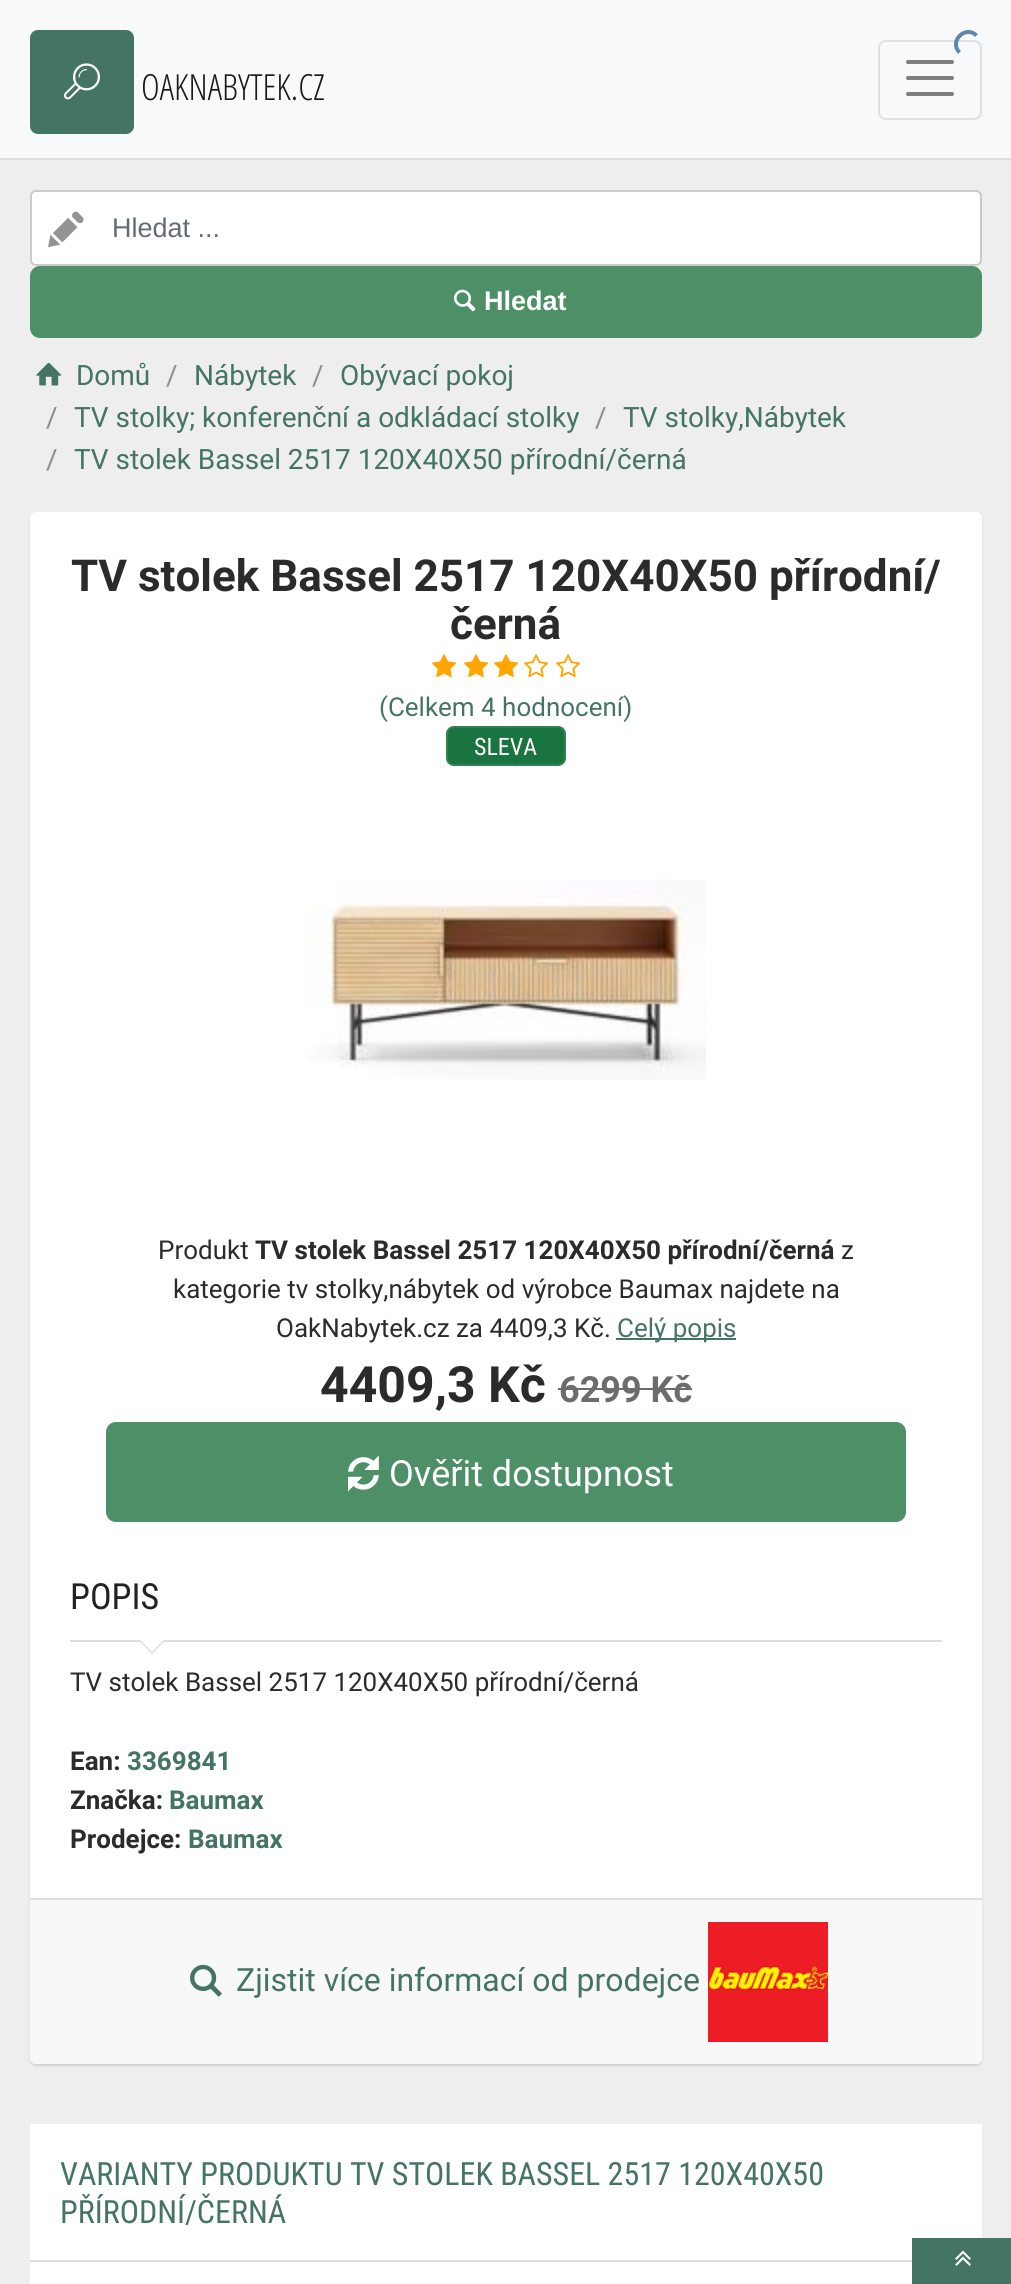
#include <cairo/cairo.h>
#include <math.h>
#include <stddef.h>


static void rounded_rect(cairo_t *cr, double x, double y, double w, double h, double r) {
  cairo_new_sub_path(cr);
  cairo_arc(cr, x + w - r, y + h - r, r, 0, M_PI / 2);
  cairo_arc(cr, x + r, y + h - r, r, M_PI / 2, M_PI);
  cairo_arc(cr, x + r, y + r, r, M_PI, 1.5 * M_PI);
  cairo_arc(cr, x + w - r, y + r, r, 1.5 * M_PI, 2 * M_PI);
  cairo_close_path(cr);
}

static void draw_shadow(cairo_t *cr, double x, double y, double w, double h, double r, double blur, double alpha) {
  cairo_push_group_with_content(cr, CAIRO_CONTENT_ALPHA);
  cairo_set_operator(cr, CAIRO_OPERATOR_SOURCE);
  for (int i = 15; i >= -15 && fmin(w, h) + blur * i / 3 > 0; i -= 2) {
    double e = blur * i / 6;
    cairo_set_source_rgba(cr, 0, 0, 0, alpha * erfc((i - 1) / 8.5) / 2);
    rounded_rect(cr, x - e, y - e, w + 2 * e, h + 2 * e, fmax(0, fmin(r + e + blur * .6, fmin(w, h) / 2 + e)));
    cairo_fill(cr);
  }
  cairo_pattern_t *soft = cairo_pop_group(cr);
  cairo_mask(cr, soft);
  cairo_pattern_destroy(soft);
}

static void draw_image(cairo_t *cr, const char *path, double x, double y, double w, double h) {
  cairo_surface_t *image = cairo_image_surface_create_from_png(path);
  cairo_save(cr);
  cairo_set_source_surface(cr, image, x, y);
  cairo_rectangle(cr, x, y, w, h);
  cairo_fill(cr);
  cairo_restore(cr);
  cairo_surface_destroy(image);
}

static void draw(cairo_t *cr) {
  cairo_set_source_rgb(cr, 238 / 255.0, 238 / 255.0, 238 / 255.0);
  cairo_paint(cr);
  cairo_set_source_rgb(cr, 248 / 255.0, 249 / 255.0, 250 / 255.0);
  cairo_rectangle(cr, 0, 0, 1011, 158);
  cairo_fill(cr);
  rounded_rect(cr, 879, 41, 102, 78, 7);
  cairo_set_source_rgb(cr, 223 / 255.0, 224 / 255.0, 225 / 255.0);
  cairo_stroke(cr);
  cairo_new_path(cr);
  cairo_move_to(cr, 959.5, 52.5);
  cairo_curve_to(cr, 948.5, 41.5, 965.5, 24.5, 976.5, 35.5);
  cairo_set_source_rgb(cr, 96 / 255.0, 136 / 255.0, 168 / 255.0);
  cairo_set_line_width(cr, 4);
  cairo_stroke(cr);
  cairo_set_source_rgb(cr, 221 / 255.0, 221 / 255.0, 221 / 255.0);
  cairo_rectangle(cr, 0, 158, 1011, 2);
  cairo_fill(cr);
  cairo_set_source_rgb(cr, 68 / 255.0, 116 / 255.0, 100 / 255.0);
  rounded_rect(cr, 30, 30, 104, 104, 8);
  cairo_fill(cr);
  draw_image(cr, "images/1.png", 64, 63, 36, 37);
  cairo_new_path(cr);
  cairo_move_to(cr, 908, 62);
  cairo_line_to(cr, 952, 62);
  cairo_move_to(cr, 908, 78);
  cairo_line_to(cr, 952, 78);
  cairo_move_to(cr, 908, 94);
  cairo_line_to(cr, 952, 94);
  cairo_set_source_rgb(cr, 124 / 255.0, 125 / 255.0, 125 / 255.0);
  cairo_set_line_cap(cr, CAIRO_LINE_CAP_ROUND);
  cairo_stroke(cr);
  cairo_set_source_rgb(cr, 1, 1, 1);
  rounded_rect(cr, 32, 192, 948, 72, 4);
  cairo_fill(cr);
  rounded_rect(cr, 31, 191, 950, 74, 5);
  cairo_set_source_rgba(cr, 0, 0, 0, 0.15);
  cairo_set_line_width(cr, 2);
  cairo_set_line_cap(cr, CAIRO_LINE_CAP_BUTT);
  cairo_stroke(cr);
  draw_image(cr, "images/2.png", 48, 211, 36, 37);
  cairo_set_source_rgb(cr, 77 / 255.0, 143 / 255.0, 102 / 255.0);
  rounded_rect(cr, 30, 266, 952, 72, 10);
  cairo_fill(cr);
  draw_image(cr, "images/3.png", 454, 289, 22, 23);
  draw_image(cr, "images/4.png", 36, 362, 26, 24);
  cairo_set_source_rgb(cr, 180 / 255.0, 180 / 255.0, 180 / 255.0);
  draw_shadow(cr, 30, 514, 952, 1552, 6, 1, 0.5);
  cairo_set_source_rgb(cr, 1, 1, 1);
  rounded_rect(cr, 30, 512, 952, 1552, 6);
  cairo_fill(cr);
  draw_image(cr, "images/5.png", 432, 654, 25, 24);
  draw_image(cr, "images/5.png", 464, 654, 25, 24);
  draw_image(cr, "images/5.png", 494, 654, 25, 24);
  draw_image(cr, "images/6.png", 524, 654, 25, 24);
  draw_image(cr, "images/6.png", 556, 654, 25, 24);
  cairo_set_source_rgb(cr, 26 / 255.0, 116 / 255.0, 63 / 255.0);
  rounded_rect(cr, 446, 726, 120, 40, 8);
  cairo_fill(cr);
  rounded_rect(cr, 447, 727, 118, 38, 7);
  cairo_set_source_rgba(cr, 1, 1, 1, 0.1);
  cairo_stroke(cr);
  draw_image(cr, "images/7.png", 306, 879, 400, 201);
  cairo_set_source_rgb(cr, 68 / 255.0, 116 / 255.0, 100 / 255.0);
  cairo_rectangle(cr, 616, 1338, 120, 2);
  cairo_fill(cr);
  cairo_set_source_rgb(cr, 108 / 255.0, 108 / 255.0, 108 / 255.0);
  cairo_rectangle(cr, 558, 1388, 134, 2);
  cairo_fill(cr);
  cairo_set_source_rgb(cr, 77 / 255.0, 143 / 255.0, 102 / 255.0);
  rounded_rect(cr, 107, 1423, 798, 98, 9);
  cairo_fill_preserve(cr);
  cairo_stroke(cr);
  draw_image(cr, "images/8.png", 348, 1455, 31, 37);
  cairo_set_source_rgb(cr, 221 / 255.0, 221 / 255.0, 221 / 255.0);
  cairo_rectangle(cr, 70, 1640, 872, 2);
  cairo_fill(cr);
  cairo_new_path(cr);
  cairo_move_to(cr, 138, 1640);
  cairo_line_to(cr, 166, 1640);
  cairo_line_to(cr, 152, 1654);
  cairo_close_path(cr);
  cairo_fill(cr);
  cairo_set_source_rgb(cr, 1, 1, 1);
  cairo_new_path(cr);
  cairo_move_to(cr, 140, 1640);
  cairo_line_to(cr, 164, 1640);
  cairo_line_to(cr, 152, 1652);
  cairo_close_path(cr);
  cairo_fill(cr);
  cairo_set_source_rgb(cr, 248 / 255.0, 248 / 255.0, 248 / 255.0);
  cairo_new_path(cr);
  cairo_move_to(cr, 30, 1898);
  cairo_line_to(cr, 982, 1898);
  cairo_line_to(cr, 982, 2058);
  cairo_curve_to(cr, 982, 2061.5, 979.5, 2064, 976, 2064);
  cairo_line_to(cr, 36, 2064);
  cairo_curve_to(cr, 32.5, 2064, 30, 2061.5, 30, 2058);
  cairo_close_path(cr);
  cairo_fill(cr);
  cairo_set_source_rgb(cr, 221 / 255.0, 221 / 255.0, 221 / 255.0);
  cairo_rectangle(cr, 30, 1898, 952, 2);
  cairo_fill(cr);
  draw_image(cr, "images/9.png", 190, 1964, 32, 33);
  draw_image(cr, "images/10.png", 708, 1922, 120, 120);
  cairo_set_source_rgb(cr, 1, 1, 1);
  cairo_rectangle(cr, 30, 2124, 952, 160);
  cairo_fill(cr);
  cairo_set_source_rgb(cr, 221 / 255.0, 221 / 255.0, 221 / 255.0);
  cairo_rectangle(cr, 30, 2260, 882, 2);
  cairo_fill(cr);
  cairo_set_source_rgb(cr, 68 / 255.0, 116 / 255.0, 100 / 255.0);
  cairo_rectangle(cr, 912, 2238, 99, 46);
  cairo_fill(cr);
  draw_image(cr, "images/11.png", 955, 2250, 16, 16);
  cairo_select_font_face(cr, "Open Sans Condensed Light", CAIRO_FONT_SLANT_NORMAL, CAIRO_FONT_WEIGHT_NORMAL);
  cairo_set_font_size(cr, 36);
  cairo_set_source_rgb(cr, 25 / 255.0, 25 / 255.0, 25 / 255.0);
  cairo_move_to(cr, 141, 100);
  cairo_show_text(cr, "OAKNABYTEK.CZ");
  cairo_select_font_face(cr, "Liberation Sans", CAIRO_FONT_SLANT_NORMAL, CAIRO_FONT_WEIGHT_NORMAL);
  cairo_set_font_size(cr, 27);
  cairo_set_source_rgb(cr, 99 / 255.0, 108 / 255.0, 114 / 255.0);
  cairo_move_to(cr, 112, 237);
  cairo_show_text(cr, "Hledat ...");
  cairo_select_font_face(cr, "Liberation Sans", CAIRO_FONT_SLANT_NORMAL, CAIRO_FONT_WEIGHT_BOLD);
  cairo_set_source_rgb(cr, 1, 1, 1);
  cairo_move_to(cr, 484, 310);
  cairo_show_text(cr, "Hledat");
  cairo_select_font_face(cr, "Roboto", CAIRO_FONT_SLANT_NORMAL, CAIRO_FONT_WEIGHT_NORMAL);
  cairo_set_font_size(cr, 28);
  cairo_set_source_rgb(cr, 68 / 255.0, 116 / 255.0, 100 / 255.0);
  cairo_move_to(cr, 76, 385);
  cairo_show_text(cr, "Domů");
  cairo_set_source_rgb(cr, 134 / 255.0, 142 / 255.0, 150 / 255.0);
  cairo_move_to(cr, 166, 385);
  cairo_show_text(cr, "/");
  cairo_set_source_rgb(cr, 68 / 255.0, 116 / 255.0, 100 / 255.0);
  cairo_move_to(cr, 194, 385);
  cairo_show_text(cr, "Nábytek");
  cairo_set_source_rgb(cr, 134 / 255.0, 142 / 255.0, 150 / 255.0);
  cairo_move_to(cr, 312, 385);
  cairo_show_text(cr, "/");
  cairo_set_source_rgb(cr, 68 / 255.0, 116 / 255.0, 100 / 255.0);
  cairo_move_to(cr, 340, 385);
  cairo_show_text(cr, "Obývací pokoj");
  cairo_set_source_rgb(cr, 134 / 255.0, 142 / 255.0, 150 / 255.0);
  cairo_move_to(cr, 46, 427);
  cairo_show_text(cr, "/");
  cairo_set_source_rgb(cr, 68 / 255.0, 116 / 255.0, 100 / 255.0);
  cairo_move_to(cr, 74, 427);
  cairo_show_text(cr, "TV stolky; konferenční a odkládací stolky");
  cairo_set_source_rgb(cr, 134 / 255.0, 142 / 255.0, 150 / 255.0);
  cairo_move_to(cr, 595, 427);
  cairo_show_text(cr, "/");
  cairo_set_source_rgb(cr, 68 / 255.0, 116 / 255.0, 100 / 255.0);
  cairo_move_to(cr, 623, 427);
  cairo_show_text(cr, "TV stolky,Nábytek");
  cairo_set_source_rgb(cr, 134 / 255.0, 142 / 255.0, 150 / 255.0);
  cairo_move_to(cr, 46, 469);
  cairo_show_text(cr, "/");
  cairo_set_source_rgb(cr, 68 / 255.0, 116 / 255.0, 100 / 255.0);
  cairo_move_to(cr, 74, 469);
  cairo_show_text(cr, "TV stolek Bassel 2517 120X40X50 přírodní/černá");
  cairo_select_font_face(cr, "Roboto", CAIRO_FONT_SLANT_NORMAL, CAIRO_FONT_WEIGHT_BOLD);
  cairo_set_font_size(cr, 44);
  cairo_set_source_rgb(cr, 41 / 255.0, 43 / 255.0, 44 / 255.0);
  cairo_move_to(cr, 71, 591);
  cairo_show_text(cr, "TV stolek Bassel 2517 120X40X50 přírodní/");
  cairo_move_to(cr, 450, 639);
  cairo_show_text(cr, "černá");
  cairo_select_font_face(cr, "Roboto", CAIRO_FONT_SLANT_NORMAL, CAIRO_FONT_WEIGHT_NORMAL);
  cairo_set_font_size(cr, 26);
  cairo_set_source_rgb(cr, 68 / 255.0, 116 / 255.0, 100 / 255.0);
  cairo_move_to(cr, 379, 716);
  cairo_show_text(cr, "(Celkem 4 hodnocení)");
  cairo_select_font_face(cr, "Roboto Condensed", CAIRO_FONT_SLANT_NORMAL, CAIRO_FONT_WEIGHT_NORMAL);
  cairo_set_font_size(cr, 24);
  cairo_set_source_rgb(cr, 1, 1, 1);
  cairo_move_to(cr, 474, 755);
  cairo_show_text(cr, "SLEVA");
  cairo_select_font_face(cr, "Roboto", CAIRO_FONT_SLANT_NORMAL, CAIRO_FONT_WEIGHT_NORMAL);
  cairo_set_font_size(cr, 26);
  cairo_set_source_rgb(cr, 41 / 255.0, 43 / 255.0, 44 / 255.0);
  cairo_move_to(cr, 158, 1259);
  cairo_show_text(cr, "Produkt");
  cairo_select_font_face(cr, "Roboto", CAIRO_FONT_SLANT_NORMAL, CAIRO_FONT_WEIGHT_BOLD);
  cairo_move_to(cr, 255, 1259);
  cairo_show_text(cr, "TV stolek Bassel 2517 120X40X50 přírodní/černá");
  cairo_select_font_face(cr, "Roboto", CAIRO_FONT_SLANT_NORMAL, CAIRO_FONT_WEIGHT_NORMAL);
  cairo_move_to(cr, 841, 1259);
  cairo_show_text(cr, "z");
  cairo_move_to(cr, 173, 1298);
  cairo_show_text(cr, "kategorie tv stolky,nábytek od výrobce Baumax najdete na");
  cairo_move_to(cr, 276, 1337);
  cairo_show_text(cr, "OakNabytek.cz za 4409,3 Kč.");
  cairo_set_source_rgb(cr, 68 / 255.0, 116 / 255.0, 100 / 255.0);
  cairo_move_to(cr, 617, 1337);
  cairo_show_text(cr, "Celý popis");
  cairo_select_font_face(cr, "Roboto", CAIRO_FONT_SLANT_NORMAL, CAIRO_FONT_WEIGHT_BOLD);
  cairo_set_font_size(cr, 50);
  cairo_set_source_rgb(cr, 41 / 255.0, 43 / 255.0, 44 / 255.0);
  cairo_move_to(cr, 320, 1402);
  cairo_show_text(cr, "4409,3 Kč");
  cairo_set_font_size(cr, 36);
  cairo_set_source_rgb(cr, 108 / 255.0, 108 / 255.0, 108 / 255.0);
  cairo_move_to(cr, 559, 1402);
  cairo_show_text(cr, "6299 Kč");
  cairo_select_font_face(cr, "Roboto", CAIRO_FONT_SLANT_NORMAL, CAIRO_FONT_WEIGHT_NORMAL);
  cairo_set_source_rgb(cr, 1, 1, 1);
  cairo_move_to(cr, 389, 1486);
  cairo_show_text(cr, "Ověřit dostupnost");
  cairo_select_font_face(cr, "Roboto Condensed", CAIRO_FONT_SLANT_NORMAL, CAIRO_FONT_WEIGHT_NORMAL);
  cairo_set_source_rgb(cr, 34 / 255.0, 34 / 255.0, 34 / 255.0);
  cairo_move_to(cr, 70, 1609);
  cairo_show_text(cr, "POPIS");
  cairo_select_font_face(cr, "Roboto", CAIRO_FONT_SLANT_NORMAL, CAIRO_FONT_WEIGHT_NORMAL);
  cairo_set_font_size(cr, 26);
  cairo_set_source_rgb(cr, 41 / 255.0, 43 / 255.0, 44 / 255.0);
  cairo_move_to(cr, 70, 1691);
  cairo_show_text(cr, "TV stolek Bassel 2517 120X40X50 přírodní/černá");
  cairo_select_font_face(cr, "Roboto", CAIRO_FONT_SLANT_NORMAL, CAIRO_FONT_WEIGHT_BOLD);
  cairo_move_to(cr, 70, 1770);
  cairo_show_text(cr, "Ean:");
  cairo_set_source_rgb(cr, 68 / 255.0, 116 / 255.0, 100 / 255.0);
  cairo_move_to(cr, 127, 1770);
  cairo_show_text(cr, "3369841");
  cairo_set_source_rgb(cr, 41 / 255.0, 43 / 255.0, 44 / 255.0);
  cairo_move_to(cr, 70, 1809);
  cairo_show_text(cr, "Značka:");
  cairo_set_source_rgb(cr, 68 / 255.0, 116 / 255.0, 100 / 255.0);
  cairo_move_to(cr, 169, 1809);
  cairo_show_text(cr, "Baumax");
  cairo_set_source_rgb(cr, 41 / 255.0, 43 / 255.0, 44 / 255.0);
  cairo_move_to(cr, 70, 1848);
  cairo_show_text(cr, "Prodejce:");
  cairo_set_source_rgb(cr, 68 / 255.0, 116 / 255.0, 100 / 255.0);
  cairo_move_to(cr, 188, 1848);
  cairo_show_text(cr, "Baumax");
  cairo_select_font_face(cr, "Roboto", CAIRO_FONT_SLANT_NORMAL, CAIRO_FONT_WEIGHT_NORMAL);
  cairo_set_font_size(cr, 32);
  cairo_move_to(cr, 236, 1991);
  cairo_show_text(cr, "Zjistit více informací od prodejce");
  cairo_select_font_face(cr, "Roboto Condensed", CAIRO_FONT_SLANT_NORMAL, CAIRO_FONT_WEIGHT_NORMAL);
  cairo_move_to(cr, 60, 2185);
  cairo_show_text(cr, "VARIANTY PRODUKTU TV STOLEK BASSEL 2517 120X40X50");
  cairo_move_to(cr, 60, 2223);
  cairo_show_text(cr, "PŘÍRODNÍ/ČERNÁ");
}

int main(void) {
  cairo_surface_t *surface = cairo_image_surface_create(CAIRO_FORMAT_RGB24, 1011, 2284);
  cairo_t *cr = cairo_create(surface);
  cairo_font_options_t *options = cairo_font_options_create();
  cairo_font_options_set_hint_metrics(options, CAIRO_HINT_METRICS_OFF);
  cairo_font_options_set_hint_style(options, CAIRO_HINT_STYLE_NONE);
  cairo_set_font_options(cr, options);
  cairo_set_miter_limit(cr, 4);
  draw(cr);
  cairo_surface_write_to_png(surface, "out.png");
  cairo_font_options_destroy(options);
  cairo_destroy(cr);
  cairo_surface_destroy(surface);
  return 0;
}
